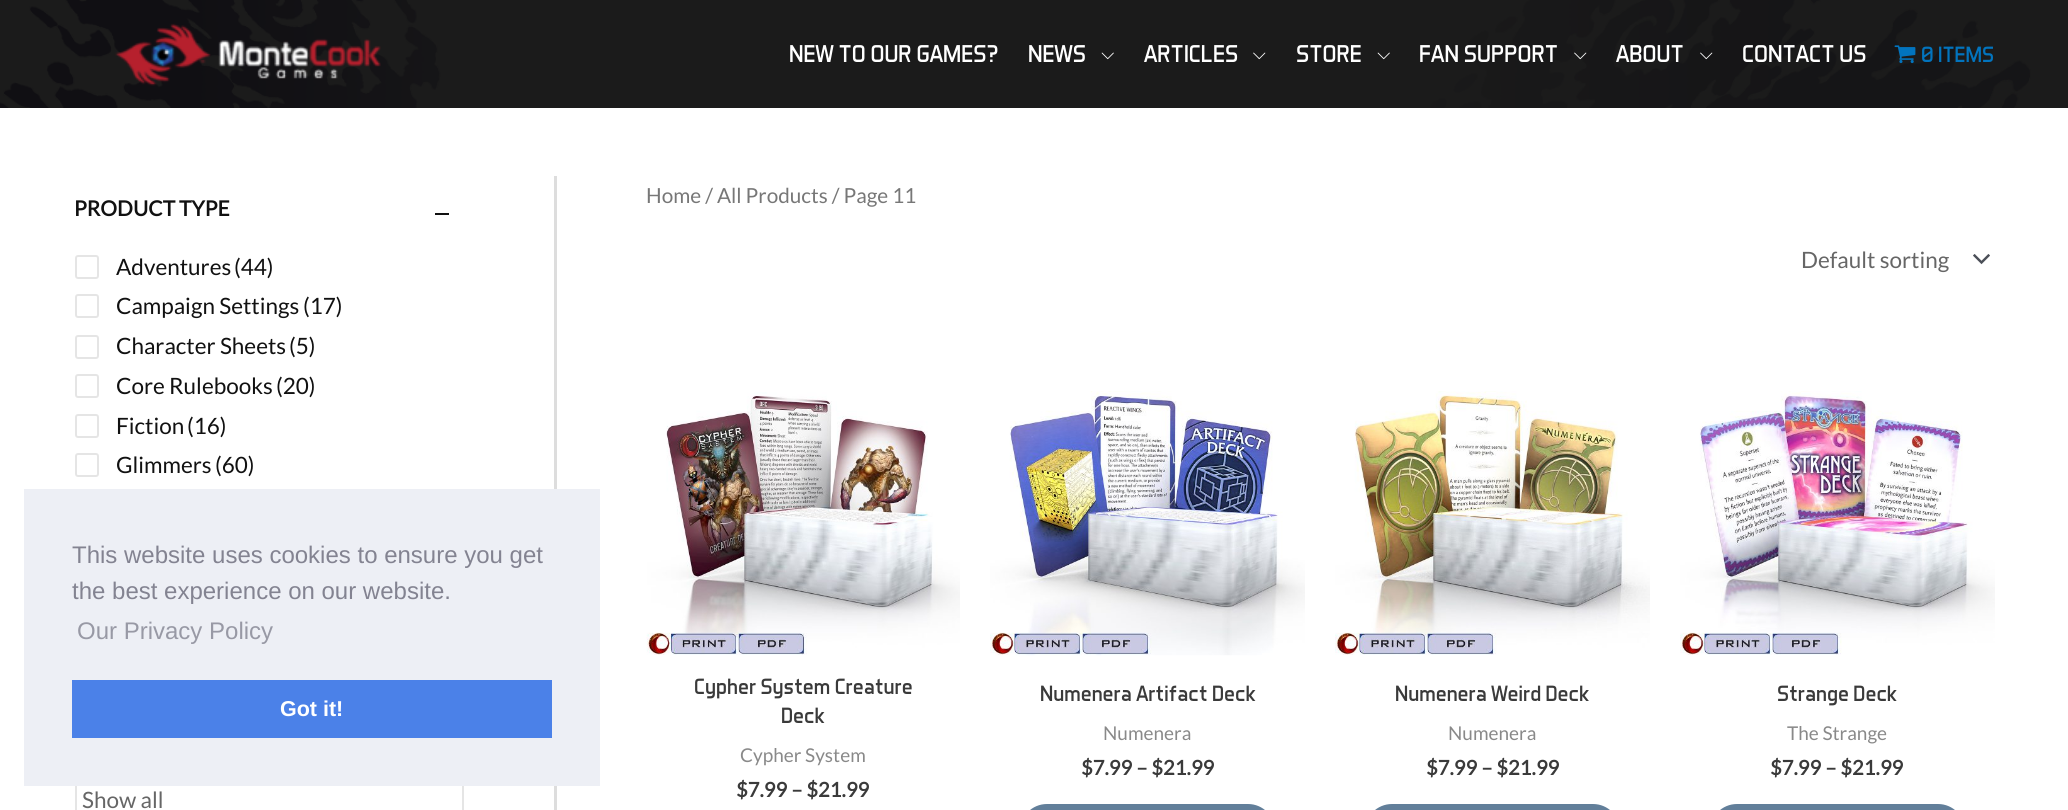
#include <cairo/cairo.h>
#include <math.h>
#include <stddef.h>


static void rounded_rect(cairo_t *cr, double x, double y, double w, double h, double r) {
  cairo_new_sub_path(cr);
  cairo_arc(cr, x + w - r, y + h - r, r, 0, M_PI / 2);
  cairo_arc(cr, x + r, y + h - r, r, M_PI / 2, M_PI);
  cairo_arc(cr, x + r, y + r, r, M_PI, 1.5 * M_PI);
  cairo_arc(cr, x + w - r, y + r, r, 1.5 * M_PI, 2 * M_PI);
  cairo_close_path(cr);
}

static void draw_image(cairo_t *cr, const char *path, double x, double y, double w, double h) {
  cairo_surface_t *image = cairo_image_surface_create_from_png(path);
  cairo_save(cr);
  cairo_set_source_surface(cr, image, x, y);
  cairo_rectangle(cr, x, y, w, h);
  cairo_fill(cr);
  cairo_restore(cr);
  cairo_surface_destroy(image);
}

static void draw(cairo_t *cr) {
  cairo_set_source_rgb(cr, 1, 1, 1);
  cairo_paint(cr);
  draw_image(cr, "images/1.png", 0, 0, 2068, 108);
  draw_image(cr, "images/2.png", 115, 23, 266, 63);
  draw_image(cr, "images/3.png", 1101, 52, 13, 8);
  draw_image(cr, "images/4.png", 1253, 52, 13, 8);
  draw_image(cr, "images/3.png", 1377, 52, 13, 8);
  draw_image(cr, "images/5.png", 1574, 52, 13, 8);
  draw_image(cr, "images/6.png", 1700, 52, 13, 8);
  draw_image(cr, "images/7.png", 1894, 45, 22, 19);
  cairo_set_source_rgb(cr, 221 / 255.0, 221 / 255.0, 221 / 255.0);
  cairo_rectangle(cr, 554, 176, 3, 634);
  cairo_fill(cr);
  cairo_set_source_rgb(cr, 17 / 255.0, 17 / 255.0, 17 / 255.0);
  cairo_rectangle(cr, 435, 213, 14, 2);
  cairo_fill(cr);
  rounded_rect(cr, 76, 256, 22, 22, 2);
  cairo_set_source_rgb(cr, 229 / 255.0, 229 / 255.0, 229 / 255.0);
  cairo_stroke(cr);
  rounded_rect(cr, 76, 295, 22, 22, 2);
  cairo_stroke(cr);
  rounded_rect(cr, 76, 336, 22, 22, 2);
  cairo_stroke(cr);
  rounded_rect(cr, 76, 375, 22, 22, 2);
  cairo_stroke(cr);
  rounded_rect(cr, 76, 415, 22, 22, 2);
  cairo_stroke(cr);
  rounded_rect(cr, 76, 454, 22, 22, 2);
  cairo_stroke(cr);
  cairo_rectangle(cr, 76, 783, 387, 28);
  cairo_stroke(cr);
  draw_image(cr, "images/8.png", 1973, 254, 17, 11);
  draw_image(cr, "images/9.png", 646, 392, 314, 263);
  draw_image(cr, "images/10.png", 990, 391, 315, 265);
  cairo_set_source_rgb(cr, 98 / 255.0, 127 / 255.0, 154 / 255.0);
  rounded_rect(cr, 1018.5, 802.5, 258, 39, 28.5);
  cairo_fill_preserve(cr);
  cairo_set_source_rgb(cr, 1, 1, 1);
  cairo_set_line_width(cr, 3);
  cairo_stroke(cr);
  draw_image(cr, "images/11.png", 1335, 391, 315, 264);
  cairo_set_source_rgb(cr, 98 / 255.0, 127 / 255.0, 154 / 255.0);
  rounded_rect(cr, 1363.5, 802.5, 258, 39, 28.5);
  cairo_fill_preserve(cr);
  cairo_set_source_rgb(cr, 1, 1, 1);
  cairo_stroke(cr);
  draw_image(cr, "images/12.png", 1680, 391, 315, 264);
  cairo_set_source_rgb(cr, 98 / 255.0, 127 / 255.0, 154 / 255.0);
  rounded_rect(cr, 1708.5, 802.5, 258, 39, 28.5);
  cairo_fill_preserve(cr);
  cairo_set_source_rgb(cr, 1, 1, 1);
  cairo_stroke(cr);
  cairo_set_source_rgb(cr, 237 / 255.0, 239 / 255.0, 245 / 255.0);
  cairo_rectangle(cr, 24, 489, 576, 297);
  cairo_fill(cr);
  cairo_set_source_rgb(cr, 75 / 255.0, 129 / 255.0, 232 / 255.0);
  cairo_rectangle(cr, 72, 680, 480, 58);
  cairo_fill(cr);
  cairo_select_font_face(cr, "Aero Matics", CAIRO_FONT_SLANT_NORMAL, CAIRO_FONT_WEIGHT_NORMAL);
  cairo_set_font_size(cr, 24.75);
  cairo_set_source_rgb(cr, 1, 1, 1);
  cairo_move_to(cr, 789, 62);
  cairo_show_text(cr, "NEW TO OUR GAMES?");
  cairo_move_to(cr, 1028, 62);
  cairo_show_text(cr, "NEWS");
  cairo_move_to(cr, 1144, 62);
  cairo_show_text(cr, "ARTICLES");
  cairo_move_to(cr, 1296, 62);
  cairo_show_text(cr, "STORE");
  cairo_move_to(cr, 1419, 62);
  cairo_show_text(cr, "FAN SUPPORT");
  cairo_move_to(cr, 1616, 62);
  cairo_show_text(cr, "ABOUT");
  cairo_move_to(cr, 1742, 62);
  cairo_show_text(cr, "CONTACT US");
  cairo_set_font_size(cr, 22.5);
  cairo_set_source_rgb(cr, 2 / 255.0, 116 / 255.0, 190 / 255.0);
  cairo_move_to(cr, 1921, 62);
  cairo_show_text(cr, "0 ITEMS");
  cairo_select_font_face(cr, "Lato", CAIRO_FONT_SLANT_NORMAL, CAIRO_FONT_WEIGHT_BOLD);
  cairo_set_font_size(cr, 21);
  cairo_set_source_rgb(cr, 17 / 255.0, 17 / 255.0, 17 / 255.0);
  cairo_move_to(cr, 74, 216);
  cairo_show_text(cr, "PRODUCT TYPE");
  cairo_select_font_face(cr, "Lato", CAIRO_FONT_SLANT_NORMAL, CAIRO_FONT_WEIGHT_NORMAL);
  cairo_set_font_size(cr, 22.5);
  cairo_move_to(cr, 116, 275);
  cairo_show_text(cr, "Adventures");
  cairo_move_to(cr, 234, 275);
  cairo_show_text(cr, "(44)");
  cairo_move_to(cr, 116, 314);
  cairo_show_text(cr, "Campaign Settings");
  cairo_move_to(cr, 303, 314);
  cairo_show_text(cr, "(17)");
  cairo_move_to(cr, 116, 354);
  cairo_show_text(cr, "Character Sheets");
  cairo_move_to(cr, 289, 354);
  cairo_show_text(cr, "(5)");
  cairo_move_to(cr, 116, 394);
  cairo_show_text(cr, "Core Rulebooks");
  cairo_move_to(cr, 276, 394);
  cairo_show_text(cr, "(20)");
  cairo_move_to(cr, 116, 434);
  cairo_show_text(cr, "Fiction");
  cairo_move_to(cr, 187, 434);
  cairo_show_text(cr, "(16)");
  cairo_move_to(cr, 116, 473);
  cairo_show_text(cr, "Glimmers");
  cairo_move_to(cr, 215, 473);
  cairo_show_text(cr, "(60)");
  cairo_set_source_rgb(cr, 102 / 255.0, 102 / 255.0, 102 / 255.0);
  cairo_move_to(cr, 82, 808);
  cairo_show_text(cr, "Show all");
  cairo_set_font_size(cr, 20.75);
  cairo_set_source_rgb(cr, 119 / 255.0, 119 / 255.0, 119 / 255.0);
  cairo_move_to(cr, 646, 203);
  cairo_show_text(cr, "Home / All Products / Page 11");
  cairo_set_font_size(cr, 22.5);
  cairo_set_source_rgb(cr, 102 / 255.0, 102 / 255.0, 102 / 255.0);
  cairo_move_to(cr, 1801, 268);
  cairo_show_text(cr, "Default sorting");
  cairo_select_font_face(cr, "Aero Matics", CAIRO_FONT_SLANT_NORMAL, CAIRO_FONT_WEIGHT_NORMAL);
  cairo_set_source_rgb(cr, 58 / 255.0, 58 / 255.0, 58 / 255.0);
  cairo_move_to(cr, 694, 694);
  cairo_show_text(cr, "Cypher System Creature");
  cairo_move_to(cr, 781, 723);
  cairo_show_text(cr, "Deck");
  cairo_select_font_face(cr, "Lato", CAIRO_FONT_SLANT_NORMAL, CAIRO_FONT_WEIGHT_NORMAL);
  cairo_set_font_size(cr, 19);
  cairo_set_source_rgb(cr, 137 / 255.0, 137 / 255.0, 137 / 255.0);
  cairo_move_to(cr, 740, 762);
  cairo_show_text(cr, "Cypher System");
  cairo_select_font_face(cr, "Lato", CAIRO_FONT_SLANT_NORMAL, CAIRO_FONT_WEIGHT_BOLD);
  cairo_set_font_size(cr, 20.25);
  cairo_set_source_rgb(cr, 58 / 255.0, 58 / 255.0, 58 / 255.0);
  cairo_move_to(cr, 736, 797);
  cairo_show_text(cr, "$7.99 – $21.99");
  cairo_select_font_face(cr, "Aero Matics", CAIRO_FONT_SLANT_NORMAL, CAIRO_FONT_WEIGHT_NORMAL);
  cairo_set_font_size(cr, 22.5);
  cairo_move_to(cr, 1040, 701);
  cairo_show_text(cr, "Numenera Artifact Deck");
  cairo_select_font_face(cr, "Lato", CAIRO_FONT_SLANT_NORMAL, CAIRO_FONT_WEIGHT_NORMAL);
  cairo_set_font_size(cr, 19);
  cairo_set_source_rgb(cr, 137 / 255.0, 137 / 255.0, 137 / 255.0);
  cairo_move_to(cr, 1103, 740);
  cairo_show_text(cr, "Numenera");
  cairo_select_font_face(cr, "Lato", CAIRO_FONT_SLANT_NORMAL, CAIRO_FONT_WEIGHT_BOLD);
  cairo_set_font_size(cr, 20.25);
  cairo_set_source_rgb(cr, 58 / 255.0, 58 / 255.0, 58 / 255.0);
  cairo_move_to(cr, 1081, 775);
  cairo_show_text(cr, "$7.99 – $21.99");
  cairo_select_font_face(cr, "Aero Matics", CAIRO_FONT_SLANT_NORMAL, CAIRO_FONT_WEIGHT_NORMAL);
  cairo_set_font_size(cr, 22.5);
  cairo_move_to(cr, 1395, 701);
  cairo_show_text(cr, "Numenera Weird Deck");
  cairo_select_font_face(cr, "Lato", CAIRO_FONT_SLANT_NORMAL, CAIRO_FONT_WEIGHT_NORMAL);
  cairo_set_font_size(cr, 19);
  cairo_set_source_rgb(cr, 137 / 255.0, 137 / 255.0, 137 / 255.0);
  cairo_move_to(cr, 1448, 740);
  cairo_show_text(cr, "Numenera");
  cairo_select_font_face(cr, "Lato", CAIRO_FONT_SLANT_NORMAL, CAIRO_FONT_WEIGHT_BOLD);
  cairo_set_font_size(cr, 20.25);
  cairo_set_source_rgb(cr, 58 / 255.0, 58 / 255.0, 58 / 255.0);
  cairo_move_to(cr, 1426, 775);
  cairo_show_text(cr, "$7.99 – $21.99");
  cairo_select_font_face(cr, "Aero Matics", CAIRO_FONT_SLANT_NORMAL, CAIRO_FONT_WEIGHT_NORMAL);
  cairo_set_font_size(cr, 22.5);
  cairo_move_to(cr, 1777, 701);
  cairo_show_text(cr, "Strange Deck");
  cairo_select_font_face(cr, "Lato", CAIRO_FONT_SLANT_NORMAL, CAIRO_FONT_WEIGHT_NORMAL);
  cairo_set_font_size(cr, 19);
  cairo_set_source_rgb(cr, 137 / 255.0, 137 / 255.0, 137 / 255.0);
  cairo_move_to(cr, 1787, 740);
  cairo_show_text(cr, "The Strange");
  cairo_select_font_face(cr, "Lato", CAIRO_FONT_SLANT_NORMAL, CAIRO_FONT_WEIGHT_BOLD);
  cairo_set_font_size(cr, 20.25);
  cairo_set_source_rgb(cr, 58 / 255.0, 58 / 255.0, 58 / 255.0);
  cairo_move_to(cr, 1770, 775);
  cairo_show_text(cr, "$7.99 – $21.99");
  cairo_select_font_face(cr, "Liberation Sans", CAIRO_FONT_SLANT_NORMAL, CAIRO_FONT_WEIGHT_NORMAL);
  cairo_set_font_size(cr, 24);
  cairo_set_source_rgb(cr, 131 / 255.0, 131 / 255.0, 145 / 255.0);
  cairo_move_to(cr, 72, 563);
  cairo_show_text(cr, "This website uses cookies to ensure you get");
  cairo_move_to(cr, 72, 599);
  cairo_show_text(cr, "the best experience on our website.");
  cairo_set_source_rgb(cr, 152 / 255.0, 153 / 255.0, 165 / 255.0);
  cairo_move_to(cr, 77, 639);
  cairo_show_text(cr, "Our Privacy Policy");
  cairo_select_font_face(cr, "Liberation Sans", CAIRO_FONT_SLANT_NORMAL, CAIRO_FONT_WEIGHT_BOLD);
  cairo_set_font_size(cr, 21.5);
  cairo_set_source_rgb(cr, 1, 1, 1);
  cairo_move_to(cr, 280, 716);
  cairo_show_text(cr, "Got it!");
}

int main(void) {
  cairo_surface_t *surface = cairo_image_surface_create(CAIRO_FORMAT_RGB24, 2068, 810);
  cairo_t *cr = cairo_create(surface);
  cairo_font_options_t *options = cairo_font_options_create();
  cairo_font_options_set_hint_metrics(options, CAIRO_HINT_METRICS_OFF);
  cairo_font_options_set_hint_style(options, CAIRO_HINT_STYLE_NONE);
  cairo_set_font_options(cr, options);
  cairo_set_miter_limit(cr, 4);
  draw(cr);
  cairo_surface_write_to_png(surface, "out.png");
  cairo_font_options_destroy(options);
  cairo_destroy(cr);
  cairo_surface_destroy(surface);
  return 0;
}
